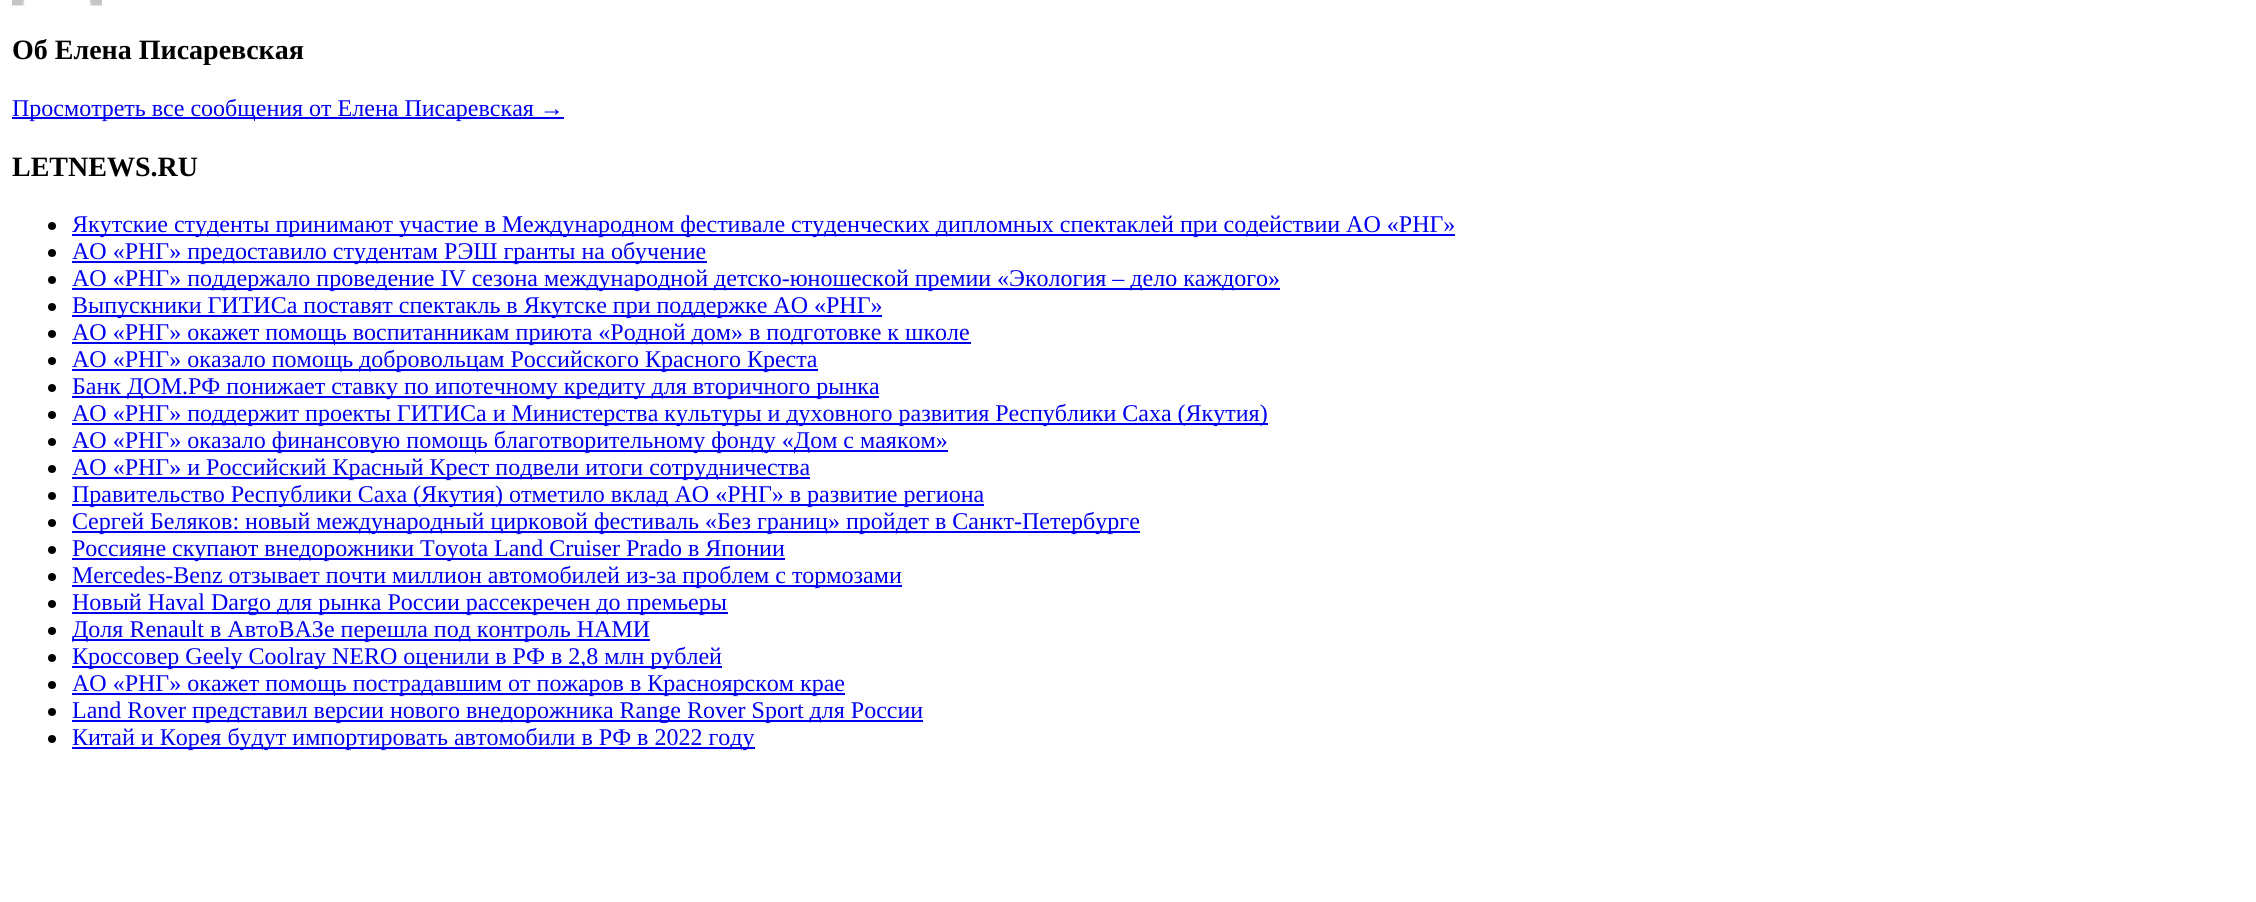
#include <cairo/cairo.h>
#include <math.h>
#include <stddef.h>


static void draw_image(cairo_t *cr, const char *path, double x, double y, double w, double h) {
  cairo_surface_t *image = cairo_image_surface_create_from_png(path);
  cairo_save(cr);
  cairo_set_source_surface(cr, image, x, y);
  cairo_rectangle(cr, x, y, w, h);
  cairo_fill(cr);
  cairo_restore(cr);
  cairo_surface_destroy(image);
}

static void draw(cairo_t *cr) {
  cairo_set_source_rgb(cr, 1, 1, 1);
  cairo_paint(cr);
  draw_image(cr, "images/1.png", 12, 0, 90, 6);
  cairo_set_source_rgb(cr, 0, 0, 238 / 255.0);
  cairo_rectangle(cr, 12, 117, 552, 2);
  cairo_fill(cr);
  cairo_set_source_rgb(cr, 0, 0, 0);
  cairo_arc(cr, 52, 226, 4, 0, 2 * M_PI);
  cairo_fill(cr);
  cairo_set_source_rgb(cr, 0, 0, 238 / 255.0);
  cairo_rectangle(cr, 72, 234, 1383, 2);
  cairo_fill(cr);
  cairo_set_source_rgb(cr, 0, 0, 0);
  cairo_arc(cr, 52, 253, 4, 0, 2 * M_PI);
  cairo_fill(cr);
  cairo_set_source_rgb(cr, 0, 0, 238 / 255.0);
  cairo_rectangle(cr, 72, 261, 635, 2);
  cairo_fill(cr);
  cairo_set_source_rgb(cr, 0, 0, 0);
  cairo_arc(cr, 52, 280, 4, 0, 2 * M_PI);
  cairo_fill(cr);
  cairo_set_source_rgb(cr, 0, 0, 238 / 255.0);
  cairo_rectangle(cr, 72, 288, 1208, 2);
  cairo_fill(cr);
  cairo_set_source_rgb(cr, 0, 0, 0);
  cairo_arc(cr, 52, 307, 4, 0, 2 * M_PI);
  cairo_fill(cr);
  cairo_set_source_rgb(cr, 0, 0, 238 / 255.0);
  cairo_rectangle(cr, 72, 315, 810, 2);
  cairo_fill(cr);
  cairo_set_source_rgb(cr, 0, 0, 0);
  cairo_arc(cr, 52, 334, 4, 0, 2 * M_PI);
  cairo_fill(cr);
  cairo_set_source_rgb(cr, 0, 0, 238 / 255.0);
  cairo_rectangle(cr, 72, 342, 899, 2);
  cairo_fill(cr);
  cairo_set_source_rgb(cr, 0, 0, 0);
  cairo_arc(cr, 52, 361, 4, 0, 2 * M_PI);
  cairo_fill(cr);
  cairo_set_source_rgb(cr, 0, 0, 238 / 255.0);
  cairo_rectangle(cr, 72, 369, 746, 2);
  cairo_fill(cr);
  cairo_set_source_rgb(cr, 0, 0, 0);
  cairo_arc(cr, 52, 388, 4, 0, 2 * M_PI);
  cairo_fill(cr);
  cairo_set_source_rgb(cr, 0, 0, 238 / 255.0);
  cairo_rectangle(cr, 72, 396, 807, 2);
  cairo_fill(cr);
  cairo_set_source_rgb(cr, 0, 0, 0);
  cairo_arc(cr, 52, 415, 4, 0, 2 * M_PI);
  cairo_fill(cr);
  cairo_set_source_rgb(cr, 0, 0, 238 / 255.0);
  cairo_rectangle(cr, 72, 423, 1196, 2);
  cairo_fill(cr);
  cairo_set_source_rgb(cr, 0, 0, 0);
  cairo_arc(cr, 52, 442, 4, 0, 2 * M_PI);
  cairo_fill(cr);
  cairo_set_source_rgb(cr, 0, 0, 238 / 255.0);
  cairo_rectangle(cr, 72, 450, 876, 2);
  cairo_fill(cr);
  cairo_set_source_rgb(cr, 0, 0, 0);
  cairo_arc(cr, 52, 469, 4, 0, 2 * M_PI);
  cairo_fill(cr);
  cairo_set_source_rgb(cr, 0, 0, 238 / 255.0);
  cairo_rectangle(cr, 72, 477, 738, 2);
  cairo_fill(cr);
  cairo_set_source_rgb(cr, 0, 0, 0);
  cairo_arc(cr, 52, 496, 4, 0, 2 * M_PI);
  cairo_fill(cr);
  cairo_set_source_rgb(cr, 0, 0, 238 / 255.0);
  cairo_rectangle(cr, 72, 504, 912, 2);
  cairo_fill(cr);
  cairo_set_source_rgb(cr, 0, 0, 0);
  cairo_arc(cr, 52, 523, 4, 0, 2 * M_PI);
  cairo_fill(cr);
  cairo_set_source_rgb(cr, 0, 0, 238 / 255.0);
  cairo_rectangle(cr, 72, 531, 1068, 2);
  cairo_fill(cr);
  cairo_set_source_rgb(cr, 0, 0, 0);
  cairo_arc(cr, 52, 550, 4, 0, 2 * M_PI);
  cairo_fill(cr);
  cairo_set_source_rgb(cr, 0, 0, 238 / 255.0);
  cairo_rectangle(cr, 72, 558, 713, 2);
  cairo_fill(cr);
  cairo_set_source_rgb(cr, 0, 0, 0);
  cairo_arc(cr, 52, 577, 4, 0, 2 * M_PI);
  cairo_fill(cr);
  cairo_set_source_rgb(cr, 0, 0, 238 / 255.0);
  cairo_rectangle(cr, 72, 585, 830, 2);
  cairo_fill(cr);
  cairo_set_source_rgb(cr, 0, 0, 0);
  cairo_arc(cr, 52, 604, 4, 0, 2 * M_PI);
  cairo_fill(cr);
  cairo_set_source_rgb(cr, 0, 0, 238 / 255.0);
  cairo_rectangle(cr, 72, 612, 656, 2);
  cairo_fill(cr);
  cairo_set_source_rgb(cr, 0, 0, 0);
  cairo_arc(cr, 52, 631, 4, 0, 2 * M_PI);
  cairo_fill(cr);
  cairo_set_source_rgb(cr, 0, 0, 238 / 255.0);
  cairo_rectangle(cr, 72, 639, 578, 2);
  cairo_fill(cr);
  cairo_set_source_rgb(cr, 0, 0, 0);
  cairo_arc(cr, 52, 658, 4, 0, 2 * M_PI);
  cairo_fill(cr);
  cairo_set_source_rgb(cr, 0, 0, 238 / 255.0);
  cairo_rectangle(cr, 72, 666, 650, 2);
  cairo_fill(cr);
  cairo_set_source_rgb(cr, 0, 0, 0);
  cairo_arc(cr, 52, 685, 4, 0, 2 * M_PI);
  cairo_fill(cr);
  cairo_set_source_rgb(cr, 0, 0, 238 / 255.0);
  cairo_rectangle(cr, 72, 693, 773, 2);
  cairo_fill(cr);
  cairo_set_source_rgb(cr, 0, 0, 0);
  cairo_arc(cr, 52, 712, 4, 0, 2 * M_PI);
  cairo_fill(cr);
  cairo_set_source_rgb(cr, 0, 0, 238 / 255.0);
  cairo_rectangle(cr, 72, 720, 851, 2);
  cairo_fill(cr);
  cairo_set_source_rgb(cr, 0, 0, 0);
  cairo_arc(cr, 52, 739, 4, 0, 2 * M_PI);
  cairo_fill(cr);
  cairo_set_source_rgb(cr, 0, 0, 238 / 255.0);
  cairo_rectangle(cr, 72, 747, 683, 2);
  cairo_fill(cr);
  cairo_select_font_face(cr, "Liberation Serif", CAIRO_FONT_SLANT_NORMAL, CAIRO_FONT_WEIGHT_BOLD);
  cairo_set_font_size(cr, 28);
  cairo_set_source_rgb(cr, 0, 0, 0);
  cairo_move_to(cr, 12, 59);
  cairo_show_text(cr, "Об Елена Писаревская");
  cairo_select_font_face(cr, "Liberation Serif", CAIRO_FONT_SLANT_NORMAL, CAIRO_FONT_WEIGHT_NORMAL);
  cairo_set_font_size(cr, 24);
  cairo_set_source_rgb(cr, 0, 0, 238 / 255.0);
  cairo_move_to(cr, 12, 116);
  cairo_show_text(cr, "Просмотреть все сообщения от Елена Писаревская →");
  cairo_select_font_face(cr, "Liberation Serif", CAIRO_FONT_SLANT_NORMAL, CAIRO_FONT_WEIGHT_BOLD);
  cairo_set_font_size(cr, 28);
  cairo_set_source_rgb(cr, 0, 0, 0);
  cairo_move_to(cr, 12, 176);
  cairo_show_text(cr, "LETNEWS.RU");
  cairo_select_font_face(cr, "Liberation Serif", CAIRO_FONT_SLANT_NORMAL, CAIRO_FONT_WEIGHT_NORMAL);
  cairo_set_font_size(cr, 24);
  cairo_set_source_rgb(cr, 0, 0, 238 / 255.0);
  cairo_move_to(cr, 72, 232);
  cairo_show_text(cr, "Якутские студенты принимают участие в Международном фестивале студенческих дипломных спектаклей при содействии АО «РНГ»");
  cairo_move_to(cr, 72, 259);
  cairo_show_text(cr, "АО «РНГ» предоставило студентам РЭШ гранты на обучение");
  cairo_move_to(cr, 72, 286);
  cairo_show_text(cr, "АО «РНГ» поддержало проведение IV сезона международной детско-юношеской премии «Экология – дело каждого»");
  cairo_move_to(cr, 72, 313);
  cairo_show_text(cr, "Выпускники ГИТИСа поставят спектакль в Якутске при поддержке АО «РНГ»");
  cairo_move_to(cr, 72, 340);
  cairo_show_text(cr, "АО «РНГ» окажет помощь воспитанникам приюта «Родной дом» в подготовке к школе");
  cairo_move_to(cr, 72, 367);
  cairo_show_text(cr, "АО «РНГ» оказало помощь добровольцам Российского Красного Креста");
  cairo_move_to(cr, 72, 394);
  cairo_show_text(cr, "Банк ДОМ.РФ понижает ставку по ипотечному кредиту для вторичного рынка");
  cairo_move_to(cr, 72, 421);
  cairo_show_text(cr, "АО «РНГ» поддержит проекты ГИТИСа и Министерства культуры и духовного развития Республики Саха (Якутия)");
  cairo_move_to(cr, 72, 448);
  cairo_show_text(cr, "АО «РНГ» оказало финансовую помощь благотворительному фонду «Дом с маяком»");
  cairo_move_to(cr, 72, 475);
  cairo_show_text(cr, "АО «РНГ» и Российский Красный Крест подвели итоги сотрудничества");
  cairo_move_to(cr, 72, 502);
  cairo_show_text(cr, "Правительство Республики Саха (Якутия) отметило вклад АО «РНГ» в развитие региона");
  cairo_move_to(cr, 72, 529);
  cairo_show_text(cr, "Сергей Беляков: новый международный цирковой фестиваль «Без границ» пройдет в Санкт-Петербурге");
  cairo_move_to(cr, 72, 556);
  cairo_show_text(cr, "Россияне скупают внедорожники Toyota Land Cruiser Prado в Японии");
  cairo_move_to(cr, 72, 583);
  cairo_show_text(cr, "Mercedes-Benz отзывает почти миллион автомобилей из-за проблем с тормозами");
  cairo_move_to(cr, 72, 610);
  cairo_show_text(cr, "Новый Haval Dargo для рынка России рассекречен до премьеры");
  cairo_move_to(cr, 72, 637);
  cairo_show_text(cr, "Доля Renault в АвтоВАЗе перешла под контроль НАМИ");
  cairo_move_to(cr, 72, 664);
  cairo_show_text(cr, "Кроссовер Geely Coolray NERO оценили в РФ в 2,8 млн рублей");
  cairo_move_to(cr, 72, 691);
  cairo_show_text(cr, "АО «РНГ» окажет помощь пострадавшим от пожаров в Красноярском крае");
  cairo_move_to(cr, 72, 718);
  cairo_show_text(cr, "Land Rover представил версии нового внедорожника Range Rover Sport для России");
  cairo_move_to(cr, 72, 745);
  cairo_show_text(cr, "Китай и Корея будут импортировать автомобили в РФ в 2022 году");
}

int main(void) {
  cairo_surface_t *surface = cairo_image_surface_create(CAIRO_FORMAT_RGB24, 2256, 902);
  cairo_t *cr = cairo_create(surface);
  cairo_font_options_t *options = cairo_font_options_create();
  cairo_font_options_set_hint_metrics(options, CAIRO_HINT_METRICS_OFF);
  cairo_font_options_set_hint_style(options, CAIRO_HINT_STYLE_NONE);
  cairo_set_font_options(cr, options);
  cairo_set_miter_limit(cr, 4);
  draw(cr);
  cairo_surface_write_to_png(surface, "out.png");
  cairo_font_options_destroy(options);
  cairo_destroy(cr);
  cairo_surface_destroy(surface);
  return 0;
}
